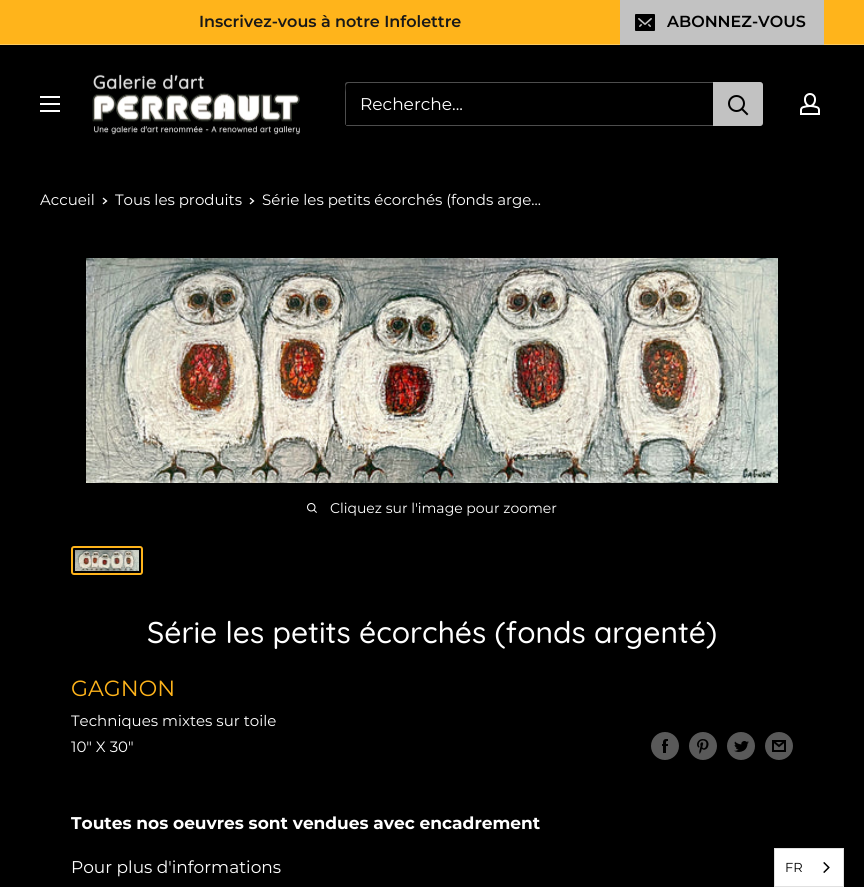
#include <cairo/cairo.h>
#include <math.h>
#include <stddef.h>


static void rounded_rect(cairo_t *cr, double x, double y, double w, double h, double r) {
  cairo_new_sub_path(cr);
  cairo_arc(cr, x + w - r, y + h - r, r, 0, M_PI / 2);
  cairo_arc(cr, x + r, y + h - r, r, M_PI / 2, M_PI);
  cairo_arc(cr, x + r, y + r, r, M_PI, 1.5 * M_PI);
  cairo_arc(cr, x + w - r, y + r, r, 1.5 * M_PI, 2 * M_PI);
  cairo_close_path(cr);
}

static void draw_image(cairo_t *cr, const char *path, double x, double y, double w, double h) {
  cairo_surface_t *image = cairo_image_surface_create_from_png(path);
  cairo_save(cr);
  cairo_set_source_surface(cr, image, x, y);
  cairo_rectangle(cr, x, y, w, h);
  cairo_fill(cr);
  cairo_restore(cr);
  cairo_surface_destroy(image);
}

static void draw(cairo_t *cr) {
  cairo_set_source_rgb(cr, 0, 0, 0);
  cairo_paint(cr);
  cairo_set_source_rgb(cr, 1, 180 / 255.0, 27 / 255.0);
  cairo_rectangle(cr, 0, 0, 864, 44);
  cairo_fill(cr);
  cairo_set_source_rgb(cr, 1, 203 / 255.0, 95 / 255.0);
  cairo_rectangle(cr, 0, 44, 864, 1);
  cairo_fill(cr);
  cairo_set_source_rgb(cr, 194 / 255.0, 194 / 255.0, 194 / 255.0);
  cairo_rectangle(cr, 620, 0, 204, 45);
  cairo_fill(cr);
  draw_image(cr, "images/1.png", 635, 14, 20, 17);
  draw_image(cr, "images/2.png", 40, 96, 20, 16);
  draw_image(cr, "images/3.png", 90, 74, 210, 61);
  cairo_set_source_rgb(cr, 77 / 255.0, 77 / 255.0, 77 / 255.0);
  cairo_new_path(cr);
  cairo_move_to(cr, 346, 125);
  cairo_curve_to(cr, 346, 126, 347, 126, 348, 126);
  cairo_line_to(cr, 760, 126);
  cairo_curve_to(cr, 762, 126, 763, 125, 763, 123);
  cairo_line_to(cr, 763, 85);
  cairo_curve_to(cr, 763, 84, 763, 83, 762, 83);
  cairo_line_to(cr, 762, 116);
  cairo_curve_to(cr, 762, 118, 764, 125, 759, 125);
  cairo_close_path(cr);
  cairo_fill(cr);
  cairo_new_path(cr);
  cairo_move_to(cr, 349, 83);
  cairo_line_to(cr, 762, 83);
  cairo_curve_to(cr, 762, 82, 761, 82, 760, 82);
  cairo_line_to(cr, 348, 82);
  cairo_curve_to(cr, 346, 82, 345, 83, 345, 85);
  cairo_line_to(cr, 345, 123);
  cairo_curve_to(cr, 345, 124, 345, 125, 346, 125);
  cairo_line_to(cr, 346, 92);
  cairo_curve_to(cr, 346, 90, 344, 83, 349, 83);
  cairo_close_path(cr);
  cairo_fill(cr);
  cairo_set_source_rgb(cr, 194 / 255.0, 194 / 255.0, 194 / 255.0);
  cairo_new_path(cr);
  cairo_move_to(cr, 713, 82);
  cairo_line_to(cr, 760, 82);
  cairo_curve_to(cr, 761.5, 82, 763, 83.5, 763, 85);
  cairo_line_to(cr, 763, 123);
  cairo_curve_to(cr, 763, 124.5, 761.5, 126, 760, 126);
  cairo_line_to(cr, 713, 126);
  cairo_close_path(cr);
  cairo_fill(cr);
  cairo_new_path(cr);
  cairo_move_to(cr, 747, 114);
  cairo_line_to(cr, 742, 109);
  cairo_set_source_rgb(cr, 0, 0, 0);
  cairo_set_line_cap(cr, CAIRO_LINE_CAP_SQUARE);
  cairo_stroke(cr);
  cairo_arc(cr, 736.5, 103.5, 7.5, 0, 2 * M_PI);
  cairo_set_line_cap(cr, CAIRO_LINE_CAP_BUTT);
  cairo_stroke(cr);
  draw_image(cr, "images/4.png", 800, 93, 20, 22);
  cairo_new_path(cr);
  cairo_move_to(cr, 103.5, 198.5);
  cairo_line_to(cr, 106.5, 201);
  cairo_line_to(cr, 103.5, 203.5);
  cairo_set_source_rgb(cr, 1, 1, 1);
  cairo_set_line_width(cr, 1.3);
  cairo_set_line_cap(cr, CAIRO_LINE_CAP_SQUARE);
  cairo_stroke(cr);
  cairo_new_path(cr);
  cairo_move_to(cr, 250.5, 198.5);
  cairo_line_to(cr, 253.5, 201);
  cairo_line_to(cr, 250.5, 203.5);
  cairo_stroke(cr);
  draw_image(cr, "images/5.png", 86, 258, 692, 225);
  draw_image(cr, "images/6.png", 307, 503, 10, 10);
  rounded_rect(cr, 72, 547, 70, 27, 2);
  cairo_set_source_rgb(cr, 1, 180 / 255.0, 27 / 255.0);
  cairo_set_line_width(cr, 2);
  cairo_set_line_cap(cr, CAIRO_LINE_CAP_BUTT);
  cairo_stroke(cr);
  draw_image(cr, "images/7.png", 75, 550, 64, 21);
  draw_image(cr, "images/8.png", 651, 732, 28, 28);
  draw_image(cr, "images/9.png", 689, 732, 28, 28);
  draw_image(cr, "images/10.png", 727, 732, 28, 28);
  draw_image(cr, "images/11.png", 765, 732, 28, 28);
  cairo_set_source_rgb(cr, 1, 1, 1);
  cairo_rectangle(cr, 774.5, 848.5, 69, 38);
  cairo_fill_preserve(cr);
  cairo_set_source_rgb(cr, 224 / 255.0, 224 / 255.0, 224 / 255.0);
  cairo_set_line_width(cr, 1);
  cairo_stroke(cr);
  draw_image(cr, "images/12.png", 823, 862, 7, 11);
  cairo_select_font_face(cr, "Montserrat SemiBold", CAIRO_FONT_SLANT_NORMAL, CAIRO_FONT_WEIGHT_NORMAL);
  cairo_set_font_size(cr, 16);
  cairo_set_source_rgb(cr, 24 / 255.0, 24 / 255.0, 24 / 255.0);
  cairo_move_to(cr, 199, 27);
  cairo_show_text(cr, "Inscrivez-vous à notre Infolettre");
  cairo_set_source_rgb(cr, 0, 0, 0);
  cairo_move_to(cr, 667, 27);
  cairo_show_text(cr, "ABONNEZ-VOUS");
  cairo_select_font_face(cr, "Montserrat", CAIRO_FONT_SLANT_NORMAL, CAIRO_FONT_WEIGHT_NORMAL);
  cairo_set_font_size(cr, 17);
  cairo_set_source_rgb(cr, 1, 1, 1);
  cairo_move_to(cr, 360, 110);
  cairo_show_text(cr, "Recherche...");
  cairo_set_font_size(cr, 15);
  cairo_move_to(cr, 40, 205);
  cairo_show_text(cr, "Accueil");
  cairo_move_to(cr, 115, 205);
  cairo_show_text(cr, "Tous les produits");
  cairo_move_to(cr, 262, 205);
  cairo_show_text(cr, "Série les petits écorchés (fonds arge...");
  cairo_set_font_size(cr, 14);
  cairo_move_to(cr, 330, 513);
  cairo_show_text(cr, "Cliquez sur l'image pour zoomer");
  cairo_select_font_face(cr, "Quicksand Medium", CAIRO_FONT_SLANT_NORMAL, CAIRO_FONT_WEIGHT_NORMAL);
  cairo_set_font_size(cr, 30);
  cairo_move_to(cr, 147, 643);
  cairo_show_text(cr, "Série les petits écorchés (fonds argenté)");
  cairo_select_font_face(cr, "Montserrat", CAIRO_FONT_SLANT_NORMAL, CAIRO_FONT_WEIGHT_NORMAL);
  cairo_set_font_size(cr, 22);
  cairo_set_source_rgb(cr, 1, 180 / 255.0, 27 / 255.0);
  cairo_move_to(cr, 71, 696);
  cairo_show_text(cr, "GAGNON");
  cairo_set_font_size(cr, 15);
  cairo_set_source_rgb(cr, 1, 1, 1);
  cairo_move_to(cr, 71, 726);
  cairo_show_text(cr, "Techniques mixtes sur toile");
  cairo_move_to(cr, 71, 752);
  cairo_show_text(cr, "10″ X 30″");
  cairo_select_font_face(cr, "Montserrat", CAIRO_FONT_SLANT_NORMAL, CAIRO_FONT_WEIGHT_BOLD);
  cairo_set_font_size(cr, 17);
  cairo_move_to(cr, 71, 829);
  cairo_show_text(cr, "Toutes nos oeuvres sont vendues avec encadrement");
  cairo_select_font_face(cr, "Montserrat", CAIRO_FONT_SLANT_NORMAL, CAIRO_FONT_WEIGHT_NORMAL);
  cairo_move_to(cr, 71, 873);
  cairo_show_text(cr, "Pour plus d'informations");
  cairo_set_font_size(cr, 13);
  cairo_set_source_rgb(cr, 0, 0, 0);
  cairo_move_to(cr, 785, 872);
  cairo_show_text(cr, "FR");
}

int main(void) {
  cairo_surface_t *surface = cairo_image_surface_create(CAIRO_FORMAT_RGB24, 864, 887);
  cairo_t *cr = cairo_create(surface);
  cairo_font_options_t *options = cairo_font_options_create();
  cairo_font_options_set_hint_metrics(options, CAIRO_HINT_METRICS_OFF);
  cairo_font_options_set_hint_style(options, CAIRO_HINT_STYLE_NONE);
  cairo_set_font_options(cr, options);
  cairo_set_miter_limit(cr, 4);
  draw(cr);
  cairo_surface_write_to_png(surface, "out.png");
  cairo_font_options_destroy(options);
  cairo_destroy(cr);
  cairo_surface_destroy(surface);
  return 0;
}
